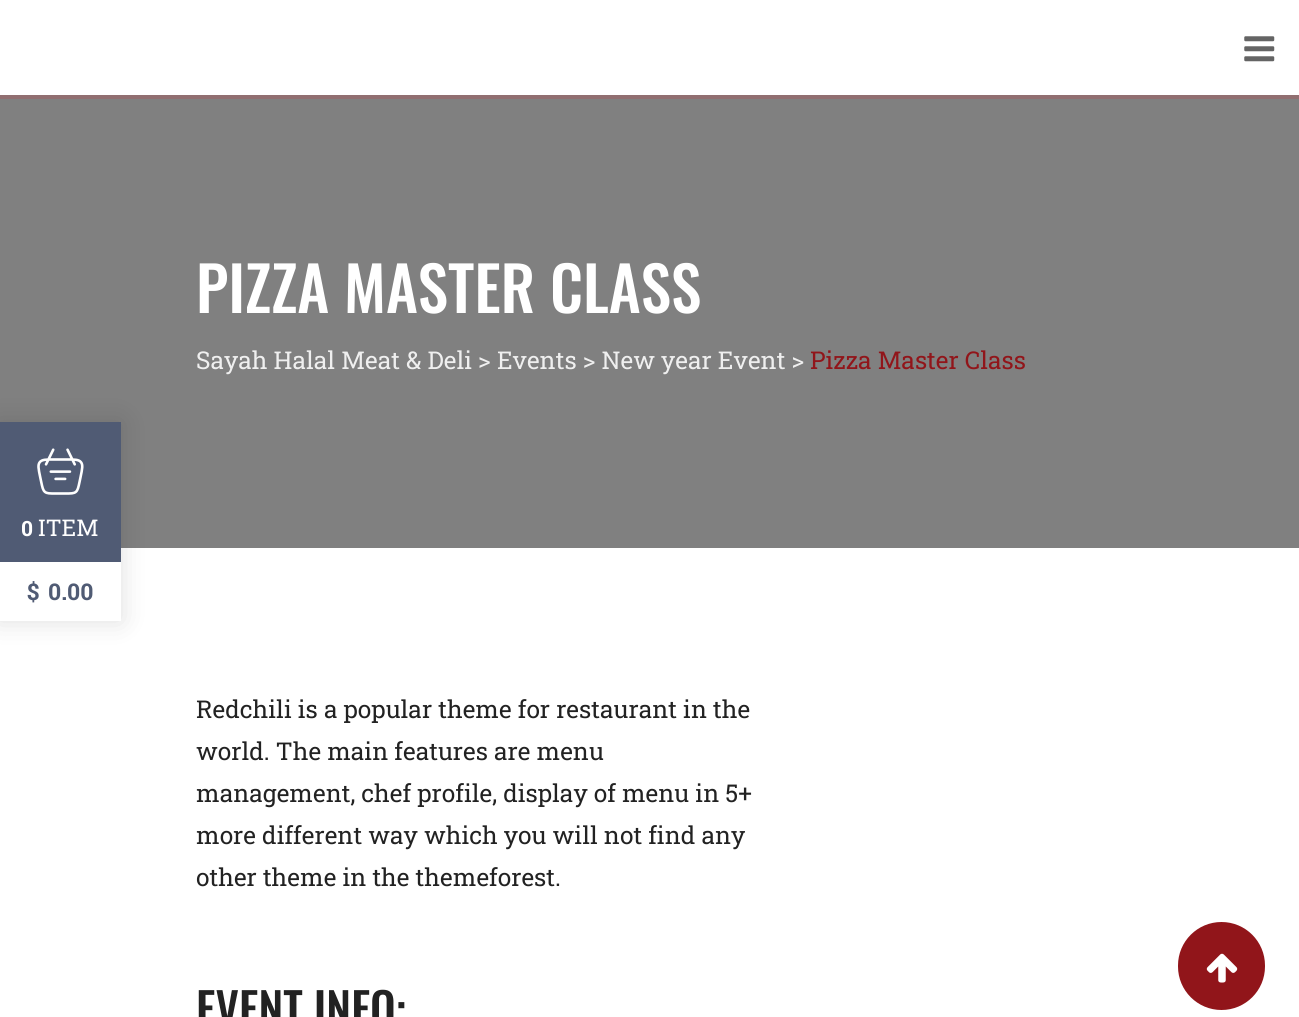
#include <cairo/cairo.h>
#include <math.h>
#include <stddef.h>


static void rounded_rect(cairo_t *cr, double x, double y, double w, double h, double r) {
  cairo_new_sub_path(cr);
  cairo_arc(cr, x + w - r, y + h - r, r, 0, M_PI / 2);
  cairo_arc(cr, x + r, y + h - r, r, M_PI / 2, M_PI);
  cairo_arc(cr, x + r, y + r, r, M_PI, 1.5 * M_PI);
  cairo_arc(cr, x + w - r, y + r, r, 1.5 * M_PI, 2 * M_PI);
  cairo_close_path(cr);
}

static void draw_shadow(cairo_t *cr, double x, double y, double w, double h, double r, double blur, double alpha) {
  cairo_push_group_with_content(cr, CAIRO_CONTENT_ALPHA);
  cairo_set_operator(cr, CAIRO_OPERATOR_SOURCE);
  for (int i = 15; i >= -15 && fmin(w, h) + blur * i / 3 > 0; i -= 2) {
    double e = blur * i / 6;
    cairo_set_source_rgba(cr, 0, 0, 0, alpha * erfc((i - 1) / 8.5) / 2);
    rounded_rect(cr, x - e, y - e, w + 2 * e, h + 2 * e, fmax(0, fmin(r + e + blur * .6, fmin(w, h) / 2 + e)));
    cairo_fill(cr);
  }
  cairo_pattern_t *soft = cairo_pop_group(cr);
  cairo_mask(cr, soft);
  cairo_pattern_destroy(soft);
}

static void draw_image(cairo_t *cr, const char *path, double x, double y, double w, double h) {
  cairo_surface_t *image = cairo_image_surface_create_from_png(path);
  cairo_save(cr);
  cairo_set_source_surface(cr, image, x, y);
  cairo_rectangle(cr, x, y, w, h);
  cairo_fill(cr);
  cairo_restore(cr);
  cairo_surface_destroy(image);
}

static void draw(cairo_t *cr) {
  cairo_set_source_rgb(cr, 1, 1, 1);
  cairo_paint(cr);
  cairo_set_source_rgb(cr, 128 / 255.0, 128 / 255.0, 128 / 255.0);
  cairo_rectangle(cr, 0, 99, 1299, 449);
  cairo_fill(cr);
  cairo_set_source_rgb(cr, 0, 0, 0);
  draw_shadow(cr, -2, 422, 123, 199, 0, 13, 0.13);
  cairo_set_source_rgb(cr, 80 / 255.0, 91 / 255.0, 116 / 255.0);
  cairo_rectangle(cr, 0, 422, 121, 140);
  cairo_fill(cr);
  draw_image(cr, "images/1.png", 37, 448, 47, 47);
  cairo_set_source_rgb(cr, 1, 1, 1);
  cairo_rectangle(cr, 0, 562, 121, 59);
  cairo_fill(cr);
  cairo_set_source_rgb(cr, 145 / 255.0, 111 / 255.0, 113 / 255.0);
  cairo_rectangle(cr, 0, 95, 1299, 4);
  cairo_fill(cr);
  draw_image(cr, "images/2.png", 1244, 36, 31, 26);
  cairo_set_source_rgb(cr, 145 / 255.0, 21 / 255.0, 26 / 255.0);
  rounded_rect(cr, 1178, 922, 87, 88, 43.5);
  cairo_fill(cr);
  draw_image(cr, "images/3.png", 1206, 953, 32, 30);
  cairo_select_font_face(cr, "Roboto Slab", CAIRO_FONT_SLANT_NORMAL, CAIRO_FONT_WEIGHT_BOLD);
  cairo_set_font_size(cr, 21);
  cairo_set_source_rgb(cr, 1, 1, 1);
  cairo_move_to(cr, 21, 536);
  cairo_show_text(cr, "0");
  cairo_select_font_face(cr, "Roboto Slab", CAIRO_FONT_SLANT_NORMAL, CAIRO_FONT_WEIGHT_NORMAL);
  cairo_set_font_size(cr, 23);
  cairo_move_to(cr, 38, 536);
  cairo_show_text(cr, "ITEM");
  cairo_select_font_face(cr, "Roboto Slab", CAIRO_FONT_SLANT_NORMAL, CAIRO_FONT_WEIGHT_BOLD);
  cairo_set_source_rgb(cr, 80 / 255.0, 91 / 255.0, 116 / 255.0);
  cairo_move_to(cr, 27, 600);
  cairo_show_text(cr, "$");
  cairo_move_to(cr, 48, 600);
  cairo_show_text(cr, "0.00");
  cairo_select_font_face(cr, "Oswald Medium", CAIRO_FONT_SLANT_NORMAL, CAIRO_FONT_WEIGHT_NORMAL);
  cairo_set_font_size(cr, 61.25);
  cairo_set_source_rgb(cr, 1, 1, 1);
  cairo_move_to(cr, 196, 313);
  cairo_show_text(cr, "PIZZA MASTER CLASS");
  cairo_select_font_face(cr, "Roboto Slab", CAIRO_FONT_SLANT_NORMAL, CAIRO_FONT_WEIGHT_NORMAL);
  cairo_set_font_size(cr, 24.5);
  cairo_set_source_rgb(cr, 239 / 255.0, 239 / 255.0, 239 / 255.0);
  cairo_move_to(cr, 196, 369);
  cairo_show_text(cr, "Sayah Halal Meat & Deli > Events > New year Event >");
  cairo_set_source_rgb(cr, 145 / 255.0, 21 / 255.0, 26 / 255.0);
  cairo_move_to(cr, 810, 369);
  cairo_show_text(cr, "Pizza Master Class");
  cairo_set_source_rgb(cr, 34 / 255.0, 34 / 255.0, 34 / 255.0);
  cairo_move_to(cr, 196, 718);
  cairo_show_text(cr, "Redchili is a popular theme for restaurant in the");
  cairo_move_to(cr, 196, 760);
  cairo_show_text(cr, "world. The main features are menu");
  cairo_move_to(cr, 196, 802);
  cairo_show_text(cr, "management, chef profile, display of menu in 5+");
  cairo_move_to(cr, 196, 844);
  cairo_show_text(cr, "more different way which you will not find any");
  cairo_move_to(cr, 196, 886);
  cairo_show_text(cr, "other theme in the themeforest.");
  cairo_select_font_face(cr, "Oswald Medium", CAIRO_FONT_SLANT_NORMAL, CAIRO_FONT_WEIGHT_NORMAL);
  cairo_set_font_size(cr, 45.5);
  cairo_move_to(cr, 196, 1027);
  cairo_show_text(cr, "EVENT INFO:");
}

int main(void) {
  cairo_surface_t *surface = cairo_image_surface_create(CAIRO_FORMAT_RGB24, 1299, 1017);
  cairo_t *cr = cairo_create(surface);
  cairo_font_options_t *options = cairo_font_options_create();
  cairo_font_options_set_hint_metrics(options, CAIRO_HINT_METRICS_OFF);
  cairo_font_options_set_hint_style(options, CAIRO_HINT_STYLE_NONE);
  cairo_set_font_options(cr, options);
  cairo_set_miter_limit(cr, 4);
  draw(cr);
  cairo_surface_write_to_png(surface, "out.png");
  cairo_font_options_destroy(options);
  cairo_destroy(cr);
  cairo_surface_destroy(surface);
  return 0;
}
